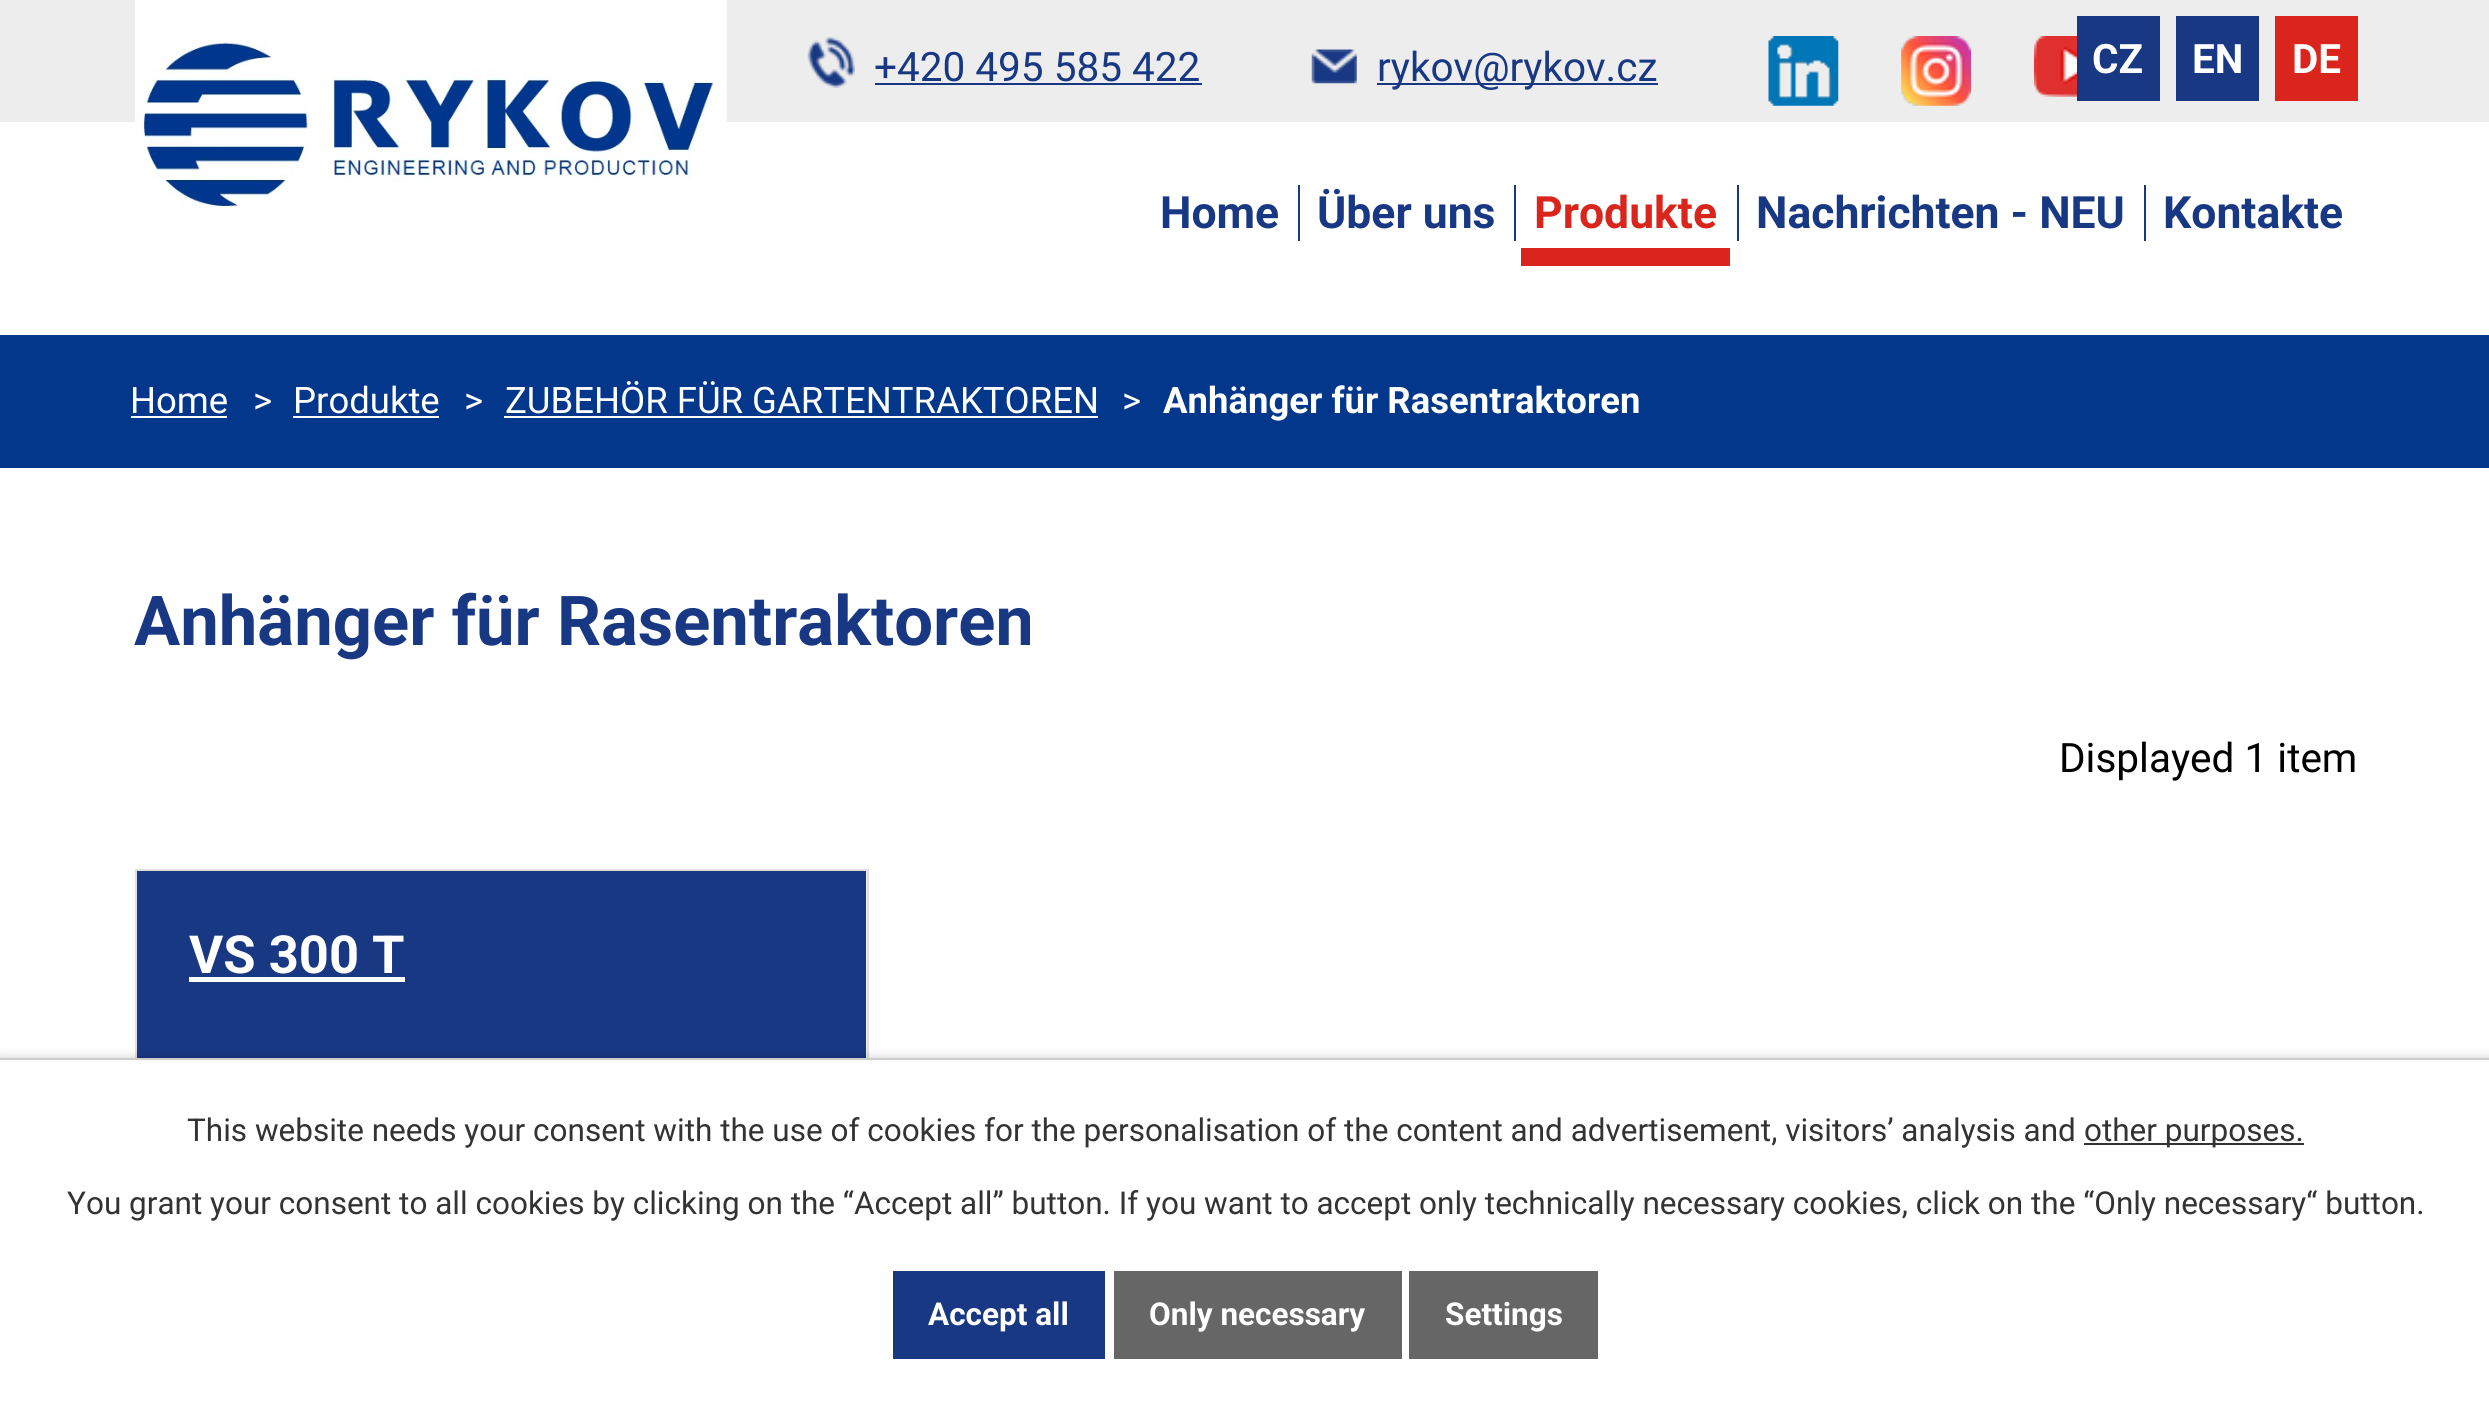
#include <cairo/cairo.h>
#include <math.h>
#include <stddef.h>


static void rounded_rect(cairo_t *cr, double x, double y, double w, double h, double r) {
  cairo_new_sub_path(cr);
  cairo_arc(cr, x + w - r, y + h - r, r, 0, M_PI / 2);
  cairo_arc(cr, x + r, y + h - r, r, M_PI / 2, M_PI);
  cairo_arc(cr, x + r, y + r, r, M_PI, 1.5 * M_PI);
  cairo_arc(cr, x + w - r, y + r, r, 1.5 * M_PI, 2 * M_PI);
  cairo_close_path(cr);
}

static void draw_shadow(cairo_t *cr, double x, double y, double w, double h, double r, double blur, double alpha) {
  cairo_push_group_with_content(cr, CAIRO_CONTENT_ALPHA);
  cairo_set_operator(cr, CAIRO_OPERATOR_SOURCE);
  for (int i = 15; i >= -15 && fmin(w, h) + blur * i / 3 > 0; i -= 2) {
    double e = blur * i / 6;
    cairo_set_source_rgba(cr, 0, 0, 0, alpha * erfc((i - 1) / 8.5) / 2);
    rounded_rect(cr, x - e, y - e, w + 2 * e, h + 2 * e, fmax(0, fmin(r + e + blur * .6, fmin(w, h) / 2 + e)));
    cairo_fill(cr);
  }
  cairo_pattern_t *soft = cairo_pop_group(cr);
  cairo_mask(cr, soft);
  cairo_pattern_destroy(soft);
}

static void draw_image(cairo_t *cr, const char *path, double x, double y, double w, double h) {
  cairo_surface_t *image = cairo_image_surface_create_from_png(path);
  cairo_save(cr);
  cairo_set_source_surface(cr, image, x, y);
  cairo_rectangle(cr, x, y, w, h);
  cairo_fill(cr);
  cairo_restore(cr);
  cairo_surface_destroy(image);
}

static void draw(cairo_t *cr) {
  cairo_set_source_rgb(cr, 1, 1, 1);
  cairo_paint(cr);
  cairo_set_source_rgb(cr, 237 / 255.0, 237 / 255.0, 237 / 255.0);
  cairo_rectangle(cr, 0, 0, 2489, 122);
  cairo_fill(cr);
  draw_image(cr, "images/1.png", 135, 0, 592, 209);
  draw_image(cr, "images/2.png", 807, 36, 48, 52);
  cairo_set_source_rgb(cr, 25 / 255.0, 56 / 255.0, 132 / 255.0);
  cairo_rectangle(cr, 875, 83, 327, 2);
  cairo_fill(cr);
  draw_image(cr, "images/3.png", 1311, 49, 46, 35);
  cairo_rectangle(cr, 1377, 83, 281, 2);
  cairo_fill(cr);
  draw_image(cr, "images/4.png", 1768, 36, 71, 70);
  draw_image(cr, "images/5.png", 1901, 36, 70, 70);
  draw_image(cr, "images/6.png", 2034, 36, 43, 61);
  cairo_rectangle(cr, 2077, 16, 83, 85);
  cairo_fill(cr);
  cairo_rectangle(cr, 2176, 16, 83, 85);
  cairo_fill(cr);
  cairo_set_source_rgb(cr, 218 / 255.0, 37 / 255.0, 28 / 255.0);
  cairo_rectangle(cr, 2275, 16, 83, 85);
  cairo_fill(cr);
  cairo_set_source_rgb(cr, 25 / 255.0, 56 / 255.0, 132 / 255.0);
  cairo_rectangle(cr, 1298, 185, 2, 56);
  cairo_fill(cr);
  cairo_rectangle(cr, 1514, 185, 2, 56);
  cairo_fill(cr);
  cairo_set_source_rgb(cr, 218 / 255.0, 37 / 255.0, 28 / 255.0);
  cairo_rectangle(cr, 1521, 248, 209, 18);
  cairo_fill(cr);
  cairo_set_source_rgb(cr, 25 / 255.0, 56 / 255.0, 132 / 255.0);
  cairo_rectangle(cr, 1737, 185, 2, 56);
  cairo_fill(cr);
  cairo_rectangle(cr, 2144, 185, 2, 56);
  cairo_fill(cr);
  cairo_set_source_rgb(cr, 3 / 255.0, 55 / 255.0, 139 / 255.0);
  cairo_rectangle(cr, 0, 335, 2489, 133);
  cairo_fill(cr);
  cairo_set_source_rgb(cr, 1, 1, 1);
  cairo_rectangle(cr, 131, 416, 96, 2);
  cairo_fill(cr);
  cairo_rectangle(cr, 293, 416, 146, 2);
  cairo_fill(cr);
  cairo_rectangle(cr, 504, 416, 594, 2);
  cairo_fill(cr);
  cairo_set_source_rgb(cr, 239 / 255.0, 239 / 255.0, 239 / 255.0);
  cairo_rectangle(cr, 866, 871, 1, 187);
  cairo_fill(cr);
  cairo_rectangle(cr, 136, 870, 732, 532);
  cairo_set_source_rgb(cr, 223 / 255.0, 223 / 255.0, 223 / 255.0);
  cairo_stroke(cr);
  cairo_set_source_rgb(cr, 25 / 255.0, 56 / 255.0, 132 / 255.0);
  cairo_rectangle(cr, 137, 871, 729, 187);
  cairo_fill(cr);
  cairo_set_source_rgb(cr, 1, 1, 1);
  cairo_rectangle(cr, 189, 977, 216, 5);
  cairo_fill(cr);
  cairo_set_source_rgb(cr, 0, 0, 0);
  draw_shadow(cr, 0, 1058, 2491, 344, 0, 5.5, 0.2);
  cairo_set_source_rgb(cr, 1, 1, 1);
  cairo_rectangle(cr, 0, 1060, 2489, 341);
  cairo_fill(cr);
  cairo_set_source_rgb(cr, 204 / 255.0, 204 / 255.0, 204 / 255.0);
  cairo_rectangle(cr, 0, 1058, 2489, 2);
  cairo_fill(cr);
  cairo_set_source_rgb(cr, 51 / 255.0, 51 / 255.0, 51 / 255.0);
  cairo_rectangle(cr, 2084, 1143, 220, 2);
  cairo_fill(cr);
  cairo_set_source_rgb(cr, 24 / 255.0, 56 / 255.0, 132 / 255.0);
  cairo_rectangle(cr, 893, 1271, 212, 88);
  cairo_fill(cr);
  cairo_set_source_rgb(cr, 102 / 255.0, 102 / 255.0, 102 / 255.0);
  cairo_rectangle(cr, 1114, 1271, 288, 88);
  cairo_fill(cr);
  cairo_rectangle(cr, 1409, 1271, 189, 88);
  cairo_fill(cr);
  cairo_select_font_face(cr, "Roboto", CAIRO_FONT_SLANT_NORMAL, CAIRO_FONT_WEIGHT_NORMAL);
  cairo_set_font_size(cr, 40.5);
  cairo_set_source_rgb(cr, 25 / 255.0, 56 / 255.0, 132 / 255.0);
  cairo_move_to(cr, 874, 81);
  cairo_show_text(cr, "+420 495 585 422");
  cairo_move_to(cr, 1377, 81);
  cairo_show_text(cr, "rykov@rykov.cz");
  cairo_select_font_face(cr, "Roboto", CAIRO_FONT_SLANT_NORMAL, CAIRO_FONT_WEIGHT_BOLD);
  cairo_set_source_rgb(cr, 1, 1, 1);
  cairo_move_to(cr, 2092, 73);
  cairo_show_text(cr, "CZ");
  cairo_move_to(cr, 2192, 73);
  cairo_show_text(cr, "EN");
  cairo_move_to(cr, 2292, 73);
  cairo_show_text(cr, "DE");
  cairo_set_font_size(cr, 44.5);
  cairo_set_source_rgb(cr, 25 / 255.0, 56 / 255.0, 132 / 255.0);
  cairo_move_to(cr, 1160, 228);
  cairo_show_text(cr, "Home");
  cairo_move_to(cr, 1317, 228);
  cairo_show_text(cr, "Über uns");
  cairo_set_source_rgb(cr, 218 / 255.0, 37 / 255.0, 28 / 255.0);
  cairo_move_to(cr, 1534, 228);
  cairo_show_text(cr, "Produkte");
  cairo_set_source_rgb(cr, 25 / 255.0, 56 / 255.0, 132 / 255.0);
  cairo_move_to(cr, 1756, 228);
  cairo_show_text(cr, "Nachrichten - NEU");
  cairo_move_to(cr, 2163, 228);
  cairo_show_text(cr, "Kontakte");
  cairo_select_font_face(cr, "Roboto", CAIRO_FONT_SLANT_NORMAL, CAIRO_FONT_WEIGHT_NORMAL);
  cairo_set_font_size(cr, 36.5);
  cairo_set_source_rgb(cr, 1, 1, 1);
  cairo_move_to(cr, 130, 413);
  cairo_show_text(cr, "Home");
  cairo_move_to(cr, 253, 413);
  cairo_show_text(cr, ">");
  cairo_move_to(cr, 293, 413);
  cairo_show_text(cr, "Produkte");
  cairo_move_to(cr, 464, 413);
  cairo_show_text(cr, ">");
  cairo_move_to(cr, 505, 413);
  cairo_show_text(cr, "ZUBEHÖR FÜR GARTENTRAKTOREN");
  cairo_move_to(cr, 1122, 413);
  cairo_show_text(cr, ">");
  cairo_select_font_face(cr, "Roboto", CAIRO_FONT_SLANT_NORMAL, CAIRO_FONT_WEIGHT_BOLD);
  cairo_move_to(cr, 1163, 413);
  cairo_show_text(cr, "Anhänger für Rasentraktoren");
  cairo_set_font_size(cr, 68.8);
  cairo_set_source_rgb(cr, 25 / 255.0, 56 / 255.0, 132 / 255.0);
  cairo_move_to(cr, 134, 645);
  cairo_show_text(cr, "Anhänger für Rasentraktoren");
  cairo_select_font_face(cr, "Roboto", CAIRO_FONT_SLANT_NORMAL, CAIRO_FONT_WEIGHT_NORMAL);
  cairo_set_font_size(cr, 40.5);
  cairo_set_source_rgb(cr, 0, 0, 0);
  cairo_move_to(cr, 2059, 772);
  cairo_show_text(cr, "Displayed 1 item");
  cairo_select_font_face(cr, "Roboto", CAIRO_FONT_SLANT_NORMAL, CAIRO_FONT_WEIGHT_BOLD);
  cairo_set_font_size(cr, 52.5);
  cairo_set_source_rgb(cr, 1, 1, 1);
  cairo_move_to(cr, 189, 973);
  cairo_show_text(cr, "VS 300 T");
  cairo_select_font_face(cr, "Roboto", CAIRO_FONT_SLANT_NORMAL, CAIRO_FONT_WEIGHT_NORMAL);
  cairo_set_font_size(cr, 31.5);
  cairo_set_source_rgb(cr, 51 / 255.0, 51 / 255.0, 51 / 255.0);
  cairo_move_to(cr, 187, 1141);
  cairo_show_text(cr, "This website needs your consent with the use of cookies for the personalisation of the content and advertisement, visitors’ analysis and");
  cairo_move_to(cr, 2084, 1141);
  cairo_show_text(cr, "other purposes.");
  cairo_move_to(cr, 67, 1214);
  cairo_show_text(cr, "You grant your consent to all cookies by clicking on the “Accept all” button. If you want to accept only technically necessary cookies, click on the “Only necessary“ button.");
  cairo_select_font_face(cr, "Roboto", CAIRO_FONT_SLANT_NORMAL, CAIRO_FONT_WEIGHT_BOLD);
  cairo_set_source_rgb(cr, 1, 1, 1);
  cairo_move_to(cr, 928, 1325);
  cairo_show_text(cr, "Accept all");
  cairo_move_to(cr, 1149, 1325);
  cairo_show_text(cr, "Only necessary");
  cairo_move_to(cr, 1445, 1325);
  cairo_show_text(cr, "Settings");
}

int main(void) {
  cairo_surface_t *surface = cairo_image_surface_create(CAIRO_FORMAT_RGB24, 2489, 1401);
  cairo_t *cr = cairo_create(surface);
  cairo_font_options_t *options = cairo_font_options_create();
  cairo_font_options_set_hint_metrics(options, CAIRO_HINT_METRICS_OFF);
  cairo_font_options_set_hint_style(options, CAIRO_HINT_STYLE_NONE);
  cairo_set_font_options(cr, options);
  cairo_set_miter_limit(cr, 4);
  draw(cr);
  cairo_surface_write_to_png(surface, "out.png");
  cairo_font_options_destroy(options);
  cairo_destroy(cr);
  cairo_surface_destroy(surface);
  return 0;
}
